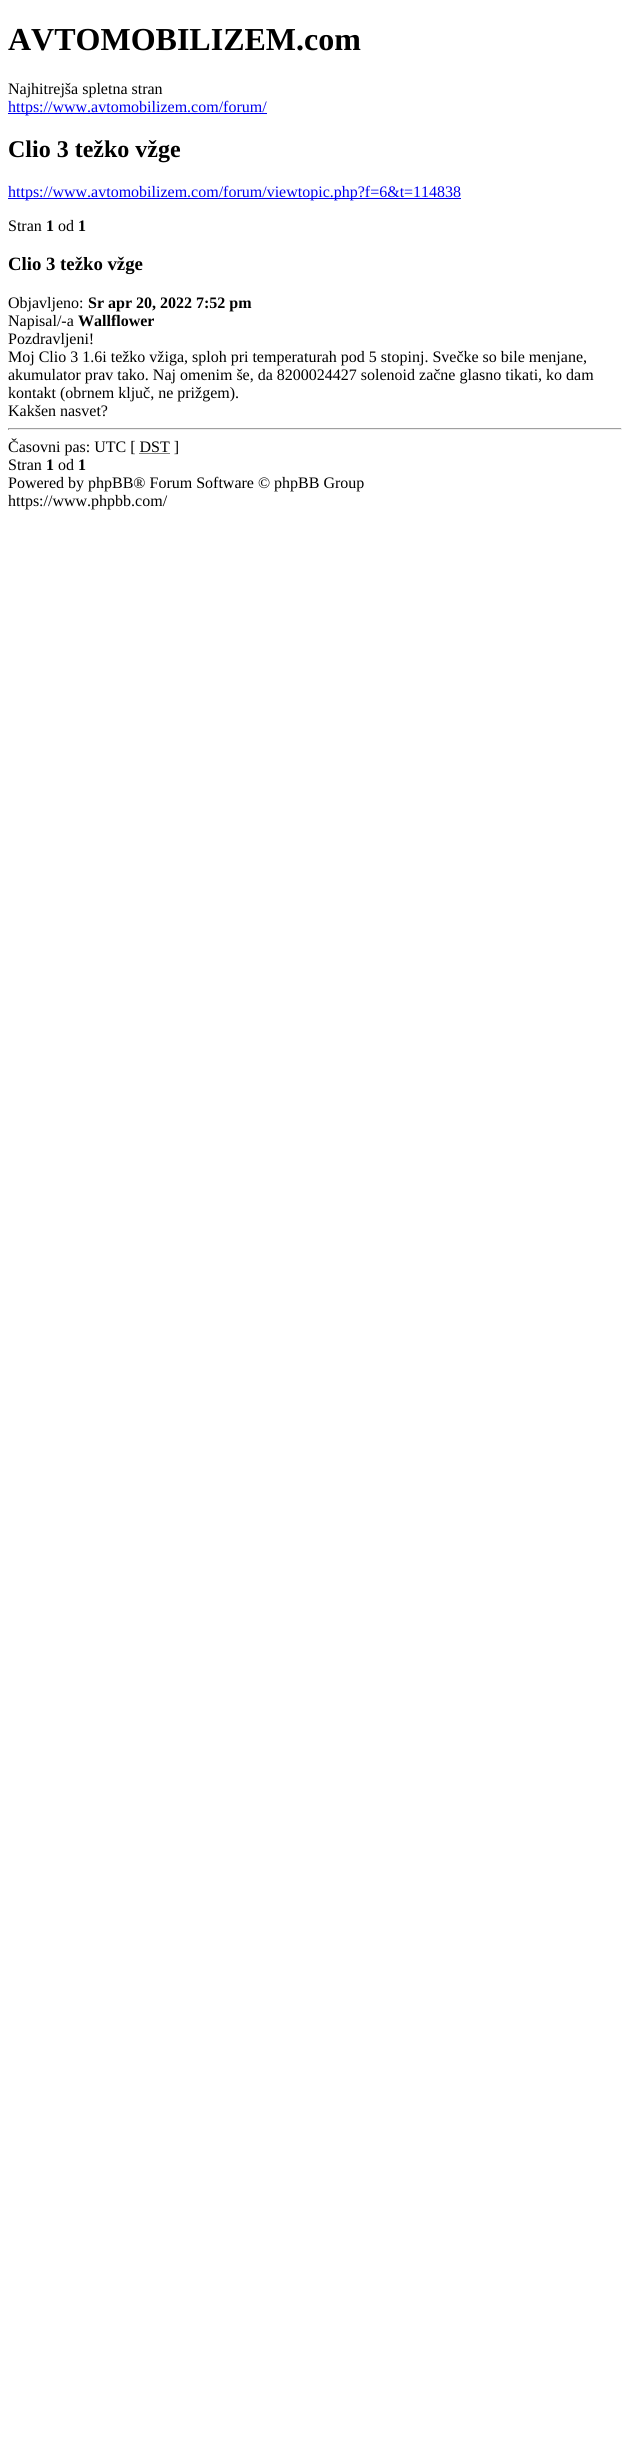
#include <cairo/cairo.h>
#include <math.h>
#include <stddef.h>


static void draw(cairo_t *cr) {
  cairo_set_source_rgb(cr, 1, 1, 1);
  cairo_paint(cr);
  cairo_set_source_rgb(cr, 0, 0, 238 / 255.0);
  cairo_rectangle(cr, 8, 113, 259, 1);
  cairo_fill(cr);
  cairo_rectangle(cr, 8, 198, 453, 1);
  cairo_fill(cr);
  cairo_set_source_rgb(cr, 159 / 255.0, 159 / 255.0, 159 / 255.0);
  cairo_rectangle(cr, 8, 428, 614, 1);
  cairo_fill(cr);
  cairo_set_source_rgb(cr, 238 / 255.0, 238 / 255.0, 238 / 255.0);
  cairo_rectangle(cr, 621, 428, 1, 2);
  cairo_fill(cr);
  cairo_rectangle(cr, 8, 429, 614, 1);
  cairo_fill(cr);
  cairo_set_source_rgb(cr, 159 / 255.0, 159 / 255.0, 159 / 255.0);
  cairo_rectangle(cr, 8, 428, 1, 2);
  cairo_fill(cr);
  cairo_new_path(cr);
  cairo_move_to(cr, 139.5, 453.5);
  cairo_line_to(cr, 170, 453.5);
  cairo_set_source_rgb(cr, 0, 0, 0);
  cairo_set_line_width(cr, 1);
  cairo_set_dash(cr, (double[]){1, 1}, 2, 0);
  cairo_stroke(cr);
  cairo_select_font_face(cr, "Liberation Serif", CAIRO_FONT_SLANT_NORMAL, CAIRO_FONT_WEIGHT_BOLD);
  cairo_set_font_size(cr, 32);
  cairo_move_to(cr, 8, 50);
  cairo_show_text(cr, "AVTOMOBILIZEM.com");
  cairo_select_font_face(cr, "Liberation Serif", CAIRO_FONT_SLANT_NORMAL, CAIRO_FONT_WEIGHT_NORMAL);
  cairo_set_font_size(cr, 16);
  cairo_move_to(cr, 8, 94);
  cairo_show_text(cr, "Najhitrejša spletna stran");
  cairo_set_source_rgb(cr, 0, 0, 238 / 255.0);
  cairo_move_to(cr, 8, 112);
  cairo_show_text(cr, "https://www.avtomobilizem.com/forum/");
  cairo_select_font_face(cr, "Liberation Serif", CAIRO_FONT_SLANT_NORMAL, CAIRO_FONT_WEIGHT_BOLD);
  cairo_set_font_size(cr, 24);
  cairo_set_source_rgb(cr, 0, 0, 0);
  cairo_move_to(cr, 8, 157);
  cairo_show_text(cr, "Clio 3 težko vžge");
  cairo_select_font_face(cr, "Liberation Serif", CAIRO_FONT_SLANT_NORMAL, CAIRO_FONT_WEIGHT_NORMAL);
  cairo_set_font_size(cr, 16);
  cairo_set_source_rgb(cr, 0, 0, 238 / 255.0);
  cairo_move_to(cr, 8, 197);
  cairo_show_text(cr, "https://www.avtomobilizem.com/forum/viewtopic.php?f=6&t=114838");
  cairo_set_source_rgb(cr, 0, 0, 0);
  cairo_move_to(cr, 8, 231);
  cairo_show_text(cr, "Stran");
  cairo_select_font_face(cr, "Liberation Serif", CAIRO_FONT_SLANT_NORMAL, CAIRO_FONT_WEIGHT_BOLD);
  cairo_move_to(cr, 46, 231);
  cairo_show_text(cr, "1");
  cairo_select_font_face(cr, "Liberation Serif", CAIRO_FONT_SLANT_NORMAL, CAIRO_FONT_WEIGHT_NORMAL);
  cairo_move_to(cr, 58, 231);
  cairo_show_text(cr, "od");
  cairo_select_font_face(cr, "Liberation Serif", CAIRO_FONT_SLANT_NORMAL, CAIRO_FONT_WEIGHT_BOLD);
  cairo_move_to(cr, 78, 231);
  cairo_show_text(cr, "1");
  cairo_set_font_size(cr, 18.75);
  cairo_move_to(cr, 8, 270);
  cairo_show_text(cr, "Clio 3 težko vžge");
  cairo_select_font_face(cr, "Liberation Serif", CAIRO_FONT_SLANT_NORMAL, CAIRO_FONT_WEIGHT_NORMAL);
  cairo_set_font_size(cr, 16);
  cairo_move_to(cr, 8, 308);
  cairo_show_text(cr, "Objavljeno:");
  cairo_select_font_face(cr, "Liberation Serif", CAIRO_FONT_SLANT_NORMAL, CAIRO_FONT_WEIGHT_BOLD);
  cairo_move_to(cr, 88, 308);
  cairo_show_text(cr, "Sr apr 20, 2022 7:52 pm");
  cairo_select_font_face(cr, "Liberation Serif", CAIRO_FONT_SLANT_NORMAL, CAIRO_FONT_WEIGHT_NORMAL);
  cairo_move_to(cr, 8, 326);
  cairo_show_text(cr, "Napisal/-a");
  cairo_select_font_face(cr, "Liberation Serif", CAIRO_FONT_SLANT_NORMAL, CAIRO_FONT_WEIGHT_BOLD);
  cairo_move_to(cr, 78, 326);
  cairo_show_text(cr, "Wallflower");
  cairo_select_font_face(cr, "Liberation Serif", CAIRO_FONT_SLANT_NORMAL, CAIRO_FONT_WEIGHT_NORMAL);
  cairo_move_to(cr, 8, 344);
  cairo_show_text(cr, "Pozdravljeni!");
  cairo_move_to(cr, 8, 362);
  cairo_show_text(cr, "Moj Clio 3 1.6i težko vžiga, sploh pri temperaturah pod 5 stopinj. Svečke so bile menjane,");
  cairo_move_to(cr, 8, 380);
  cairo_show_text(cr, "akumulator prav tako. Naj omenim še, da 8200024427 solenoid začne glasno tikati, ko dam");
  cairo_move_to(cr, 8, 398);
  cairo_show_text(cr, "kontakt (obrnem ključ, ne prižgem).");
  cairo_move_to(cr, 8, 416);
  cairo_show_text(cr, "Kakšen nasvet?");
  cairo_move_to(cr, 8, 452);
  cairo_show_text(cr, "Časovni pas: UTC [ DST ]");
  cairo_move_to(cr, 8, 470);
  cairo_show_text(cr, "Stran");
  cairo_select_font_face(cr, "Liberation Serif", CAIRO_FONT_SLANT_NORMAL, CAIRO_FONT_WEIGHT_BOLD);
  cairo_move_to(cr, 46, 470);
  cairo_show_text(cr, "1");
  cairo_select_font_face(cr, "Liberation Serif", CAIRO_FONT_SLANT_NORMAL, CAIRO_FONT_WEIGHT_NORMAL);
  cairo_move_to(cr, 58, 470);
  cairo_show_text(cr, "od");
  cairo_select_font_face(cr, "Liberation Serif", CAIRO_FONT_SLANT_NORMAL, CAIRO_FONT_WEIGHT_BOLD);
  cairo_move_to(cr, 78, 470);
  cairo_show_text(cr, "1");
  cairo_select_font_face(cr, "Liberation Serif", CAIRO_FONT_SLANT_NORMAL, CAIRO_FONT_WEIGHT_NORMAL);
  cairo_move_to(cr, 8, 488);
  cairo_show_text(cr, "Powered by phpBB® Forum Software © phpBB Group");
  cairo_move_to(cr, 8, 506);
  cairo_show_text(cr, "https://www.phpbb.com/");
}

int main(void) {
  cairo_surface_t *surface = cairo_image_surface_create(CAIRO_FORMAT_RGB24, 630, 2453);
  cairo_t *cr = cairo_create(surface);
  cairo_font_options_t *options = cairo_font_options_create();
  cairo_font_options_set_hint_metrics(options, CAIRO_HINT_METRICS_OFF);
  cairo_font_options_set_hint_style(options, CAIRO_HINT_STYLE_NONE);
  cairo_set_font_options(cr, options);
  cairo_set_miter_limit(cr, 4);
  draw(cr);
  cairo_surface_write_to_png(surface, "out.png");
  cairo_font_options_destroy(options);
  cairo_destroy(cr);
  cairo_surface_destroy(surface);
  return 0;
}
